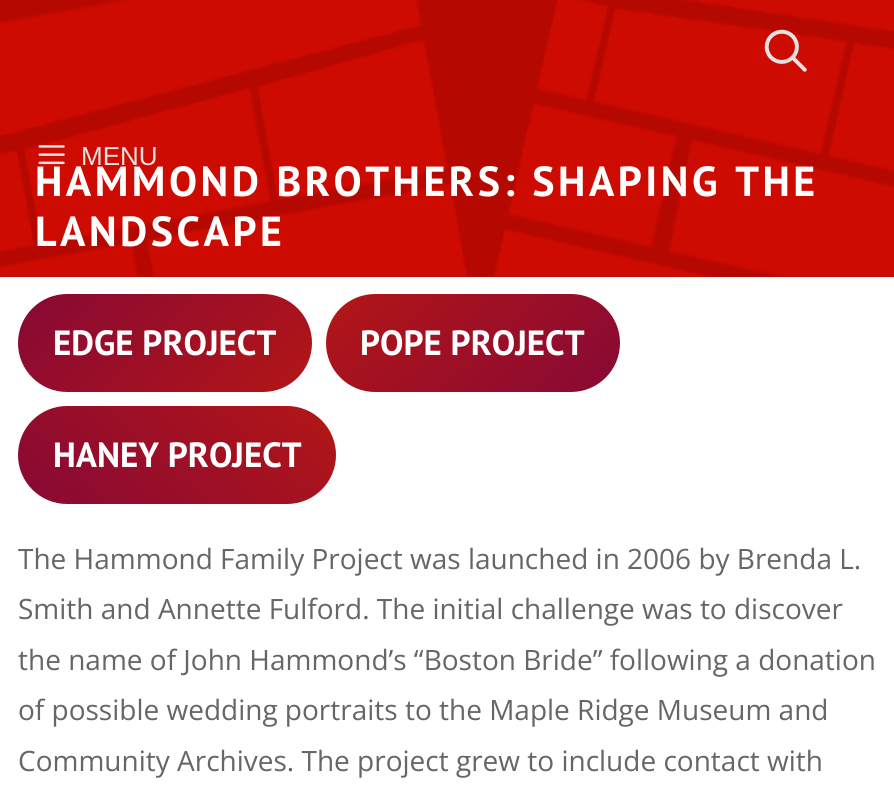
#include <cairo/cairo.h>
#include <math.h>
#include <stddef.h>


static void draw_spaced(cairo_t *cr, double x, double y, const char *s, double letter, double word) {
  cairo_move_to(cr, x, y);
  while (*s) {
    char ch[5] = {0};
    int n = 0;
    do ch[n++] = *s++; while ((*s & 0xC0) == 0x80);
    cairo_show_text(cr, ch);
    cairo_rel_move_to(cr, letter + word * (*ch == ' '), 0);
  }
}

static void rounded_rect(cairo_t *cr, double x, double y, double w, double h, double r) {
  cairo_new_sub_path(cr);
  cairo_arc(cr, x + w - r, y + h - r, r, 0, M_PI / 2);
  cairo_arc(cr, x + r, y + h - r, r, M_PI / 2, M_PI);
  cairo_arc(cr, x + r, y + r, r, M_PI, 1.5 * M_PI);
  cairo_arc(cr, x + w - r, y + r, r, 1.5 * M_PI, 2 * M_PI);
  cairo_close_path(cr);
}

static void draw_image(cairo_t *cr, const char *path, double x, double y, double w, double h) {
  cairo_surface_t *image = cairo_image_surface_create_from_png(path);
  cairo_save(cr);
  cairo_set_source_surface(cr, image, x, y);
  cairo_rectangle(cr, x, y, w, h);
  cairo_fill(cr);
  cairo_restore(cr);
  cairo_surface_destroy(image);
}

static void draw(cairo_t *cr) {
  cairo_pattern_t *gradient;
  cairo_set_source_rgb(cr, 1, 1, 1);
  cairo_paint(cr);
  cairo_set_source_rgb(cr, 181 / 255.0, 8 / 255.0, 1 / 255.0);
  cairo_rectangle(cr, 0, 276, 894, 1);
  cairo_fill(cr);
  draw_image(cr, "images/3.png", 0, 0, 894, 277);
  draw_image(cr, "images/1.png", 764, 29, 43, 43);
  draw_image(cr, "images/2.png", 38, 145, 27, 20);
  gradient = cairo_pattern_create_linear(66, 245, 263, 441);
  cairo_pattern_add_color_stop_rgba(gradient, 0, 135 / 255.0, 9 / 255.0, 53 / 255.0, 1);
  cairo_pattern_add_color_stop_rgba(gradient, 1, 179 / 255.0, 22 / 255.0, 22 / 255.0, 1);
  cairo_set_source(cr, gradient);
  cairo_pattern_destroy(gradient);
  rounded_rect(cr, 18, 294, 294, 98, 49);
  cairo_fill(cr);
  gradient = cairo_pattern_create_linear(565, 443, 380, 243);
  cairo_pattern_add_color_stop_rgba(gradient, 0, 135 / 255.0, 9 / 255.0, 53 / 255.0, 1);
  cairo_pattern_add_color_stop_rgba(gradient, 1, 179 / 255.0, 22 / 255.0, 22 / 255.0, 1);
  cairo_set_source(cr, gradient);
  cairo_pattern_destroy(gradient);
  rounded_rect(cr, 326, 294, 294, 98, 49);
  cairo_fill(cr);
  gradient = cairo_pattern_create_linear(81, 561, 272, 349);
  cairo_pattern_add_color_stop_rgba(gradient, 0, 135 / 255.0, 9 / 255.0, 53 / 255.0, 1);
  cairo_pattern_add_color_stop_rgba(gradient, 1, 179 / 255.0, 22 / 255.0, 22 / 255.0, 1);
  cairo_set_source(cr, gradient);
  cairo_pattern_destroy(gradient);
  rounded_rect(cr, 18, 406, 318, 98, 49);
  cairo_fill(cr);
  cairo_select_font_face(cr, "Liberation Sans", CAIRO_FONT_SLANT_NORMAL, CAIRO_FONT_WEIGHT_NORMAL);
  cairo_set_font_size(cr, 26);
  cairo_set_source_rgb(cr, 226 / 255.0, 226 / 255.0, 226 / 255.0);
  cairo_move_to(cr, 81, 165);
  cairo_show_text(cr, "MENU");
  cairo_select_font_face(cr, "PT Sans", CAIRO_FONT_SLANT_NORMAL, CAIRO_FONT_WEIGHT_BOLD);
  cairo_set_font_size(cr, 42);
  cairo_set_source_rgb(cr, 1, 1, 1);
  draw_spaced(cr, 35, 196, "HAMMOND BROTHERS: SHAPING THE", 3.5, 0);
  draw_spaced(cr, 35, 246, "LANDSCAPE", 3.5, 0);
  cairo_set_font_size(cr, 35);
  cairo_move_to(cr, 53, 355);
  cairo_show_text(cr, "EDGE PROJECT");
  cairo_move_to(cr, 360, 355);
  cairo_show_text(cr, "POPE PROJECT");
  cairo_move_to(cr, 53, 467);
  cairo_show_text(cr, "HANEY PROJECT");
  cairo_select_font_face(cr, "Open Sans", CAIRO_FONT_SLANT_NORMAL, CAIRO_FONT_WEIGHT_NORMAL);
  cairo_set_font_size(cr, 28);
  cairo_set_source_rgb(cr, 102 / 255.0, 102 / 255.0, 102 / 255.0);
  cairo_move_to(cr, 18, 569);
  cairo_show_text(cr, "The Hammond Family Project was launched in 2006 by Brenda L.");
  cairo_move_to(cr, 18, 619);
  cairo_show_text(cr, "Smith and Annette Fulford. The initial challenge was to discover");
  cairo_move_to(cr, 18, 670);
  cairo_show_text(cr, "the name of John Hammond’s “Boston Bride” following a donation");
  cairo_move_to(cr, 18, 720);
  cairo_show_text(cr, "of possible wedding portraits to the Maple Ridge Museum and");
  cairo_move_to(cr, 18, 771);
  cairo_show_text(cr, "Community Archives. The project grew to include contact with");
}

int main(void) {
  cairo_surface_t *surface = cairo_image_surface_create(CAIRO_FORMAT_RGB24, 894, 788);
  cairo_t *cr = cairo_create(surface);
  cairo_font_options_t *options = cairo_font_options_create();
  cairo_font_options_set_hint_metrics(options, CAIRO_HINT_METRICS_OFF);
  cairo_font_options_set_hint_style(options, CAIRO_HINT_STYLE_NONE);
  cairo_set_font_options(cr, options);
  cairo_set_miter_limit(cr, 4);
  draw(cr);
  cairo_surface_write_to_png(surface, "out.png");
  cairo_font_options_destroy(options);
  cairo_destroy(cr);
  cairo_surface_destroy(surface);
  return 0;
}
